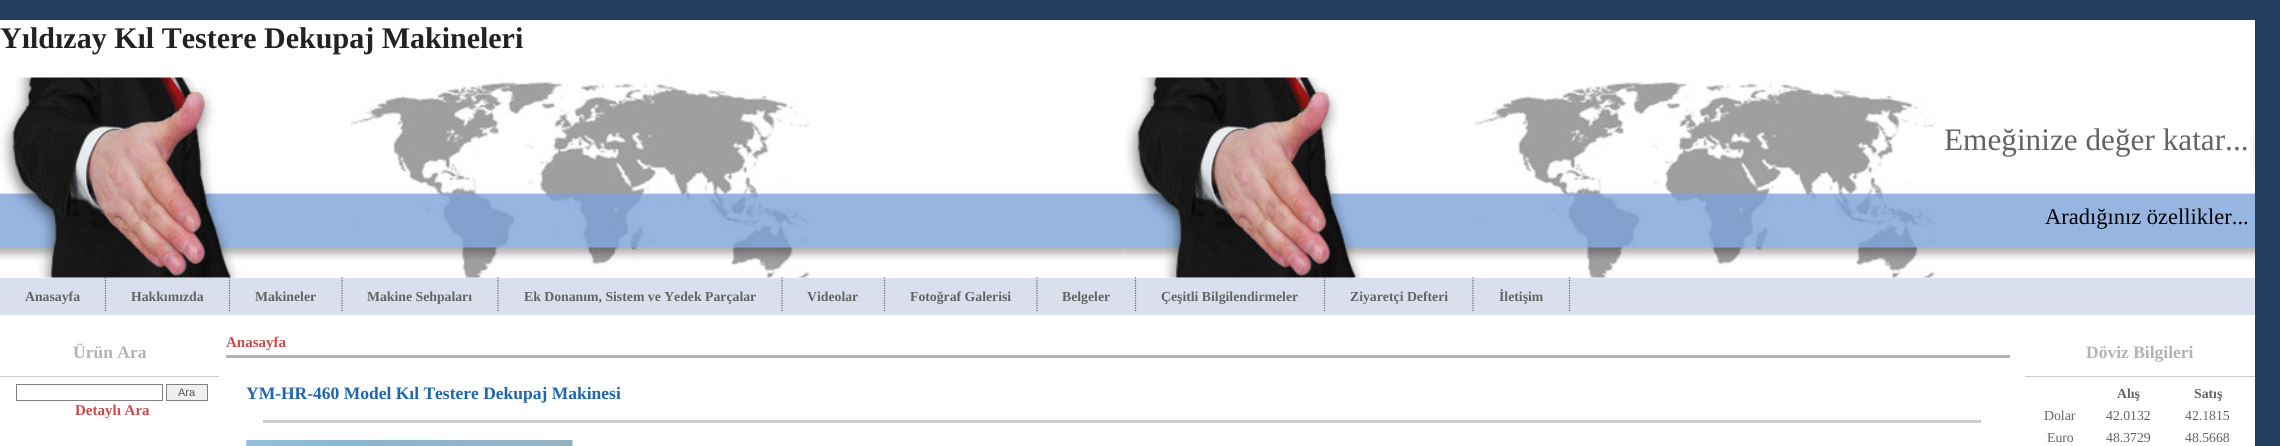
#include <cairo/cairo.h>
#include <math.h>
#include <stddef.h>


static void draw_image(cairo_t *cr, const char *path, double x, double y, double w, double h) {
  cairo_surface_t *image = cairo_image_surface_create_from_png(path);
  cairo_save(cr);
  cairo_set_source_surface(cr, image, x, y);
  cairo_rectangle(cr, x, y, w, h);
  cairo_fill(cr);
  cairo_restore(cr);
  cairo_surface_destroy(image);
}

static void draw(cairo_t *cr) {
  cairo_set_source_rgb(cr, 36 / 255.0, 62 / 255.0, 97 / 255.0);
  cairo_paint(cr);
  cairo_set_source_rgb(cr, 1, 1, 1);
  cairo_rectangle(cr, 0, 20, 2255, 426);
  cairo_fill(cr);
  draw_image(cr, "images/1.png", 0, 77, 2255, 201);
  cairo_set_source_rgb(cr, 217 / 255.0, 223 / 255.0, 237 / 255.0);
  cairo_rectangle(cr, 0, 278, 2255, 37);
  cairo_fill(cr);
  cairo_new_path(cr);
  cairo_move_to(cr, 105.5, 277.5);
  cairo_line_to(cr, 105.5, 312.5);
  cairo_set_source_rgb(cr, 102 / 255.0, 102 / 255.0, 102 / 255.0);
  cairo_set_line_width(cr, 1.2);
  cairo_set_dash(cr, (double[]){1.25, 1.25}, 2, 0);
  cairo_stroke(cr);
  cairo_new_path(cr);
  cairo_move_to(cr, 229.5, 277.5);
  cairo_line_to(cr, 229.5, 312.5);
  cairo_stroke(cr);
  cairo_new_path(cr);
  cairo_move_to(cr, 342, 277.5);
  cairo_line_to(cr, 342, 312.5);
  cairo_stroke(cr);
  cairo_new_path(cr);
  cairo_move_to(cr, 498, 277.5);
  cairo_line_to(cr, 498, 312.5);
  cairo_stroke(cr);
  cairo_new_path(cr);
  cairo_move_to(cr, 782, 277.5);
  cairo_line_to(cr, 782, 312.5);
  cairo_stroke(cr);
  cairo_new_path(cr);
  cairo_move_to(cr, 884.5, 277.5);
  cairo_line_to(cr, 884.5, 312.5);
  cairo_stroke(cr);
  cairo_new_path(cr);
  cairo_move_to(cr, 1037, 277.5);
  cairo_line_to(cr, 1037, 312.5);
  cairo_stroke(cr);
  cairo_new_path(cr);
  cairo_move_to(cr, 1135.5, 277.5);
  cairo_line_to(cr, 1135.5, 312.5);
  cairo_stroke(cr);
  cairo_new_path(cr);
  cairo_move_to(cr, 1324.5, 277.5);
  cairo_line_to(cr, 1324.5, 312.5);
  cairo_stroke(cr);
  cairo_new_path(cr);
  cairo_move_to(cr, 1473, 277.5);
  cairo_line_to(cr, 1473, 312.5);
  cairo_stroke(cr);
  cairo_new_path(cr);
  cairo_move_to(cr, 1569.5, 277.5);
  cairo_line_to(cr, 1569.5, 312.5);
  cairo_stroke(cr);
  cairo_set_source_rgb(cr, 204 / 255.0, 204 / 255.0, 204 / 255.0);
  cairo_rectangle(cr, 0, 376, 219, 1);
  cairo_fill(cr);
  cairo_rectangle(cr, 16.5, 384.5, 146, 16);
  cairo_set_source_rgb(cr, 128 / 255.0, 128 / 255.0, 128 / 255.0);
  cairo_set_line_width(cr, 1);
  cairo_set_dash(cr, NULL, 0, 0);
  cairo_stroke(cr);
  cairo_set_source_rgb(cr, 239 / 255.0, 239 / 255.0, 239 / 255.0);
  cairo_rectangle(cr, 166.5, 384.5, 41, 16);
  cairo_fill_preserve(cr);
  cairo_set_source_rgb(cr, 128 / 255.0, 128 / 255.0, 128 / 255.0);
  cairo_stroke(cr);
  cairo_set_source_rgb(cr, 179 / 255.0, 179 / 255.0, 179 / 255.0);
  cairo_rectangle(cr, 226, 355, 1784, 3);
  cairo_fill(cr);
  cairo_set_source_rgb(cr, 204 / 255.0, 204 / 255.0, 204 / 255.0);
  cairo_rectangle(cr, 263, 420, 1718, 3);
  cairo_fill(cr);
  draw_image(cr, "images/2.png", 246, 440, 327, 6);
  cairo_rectangle(cr, 2025, 376, 230, 1);
  cairo_fill(cr);
  cairo_select_font_face(cr, "Liberation Serif", CAIRO_FONT_SLANT_NORMAL, CAIRO_FONT_WEIGHT_BOLD);
  cairo_set_font_size(cr, 30);
  cairo_set_source_rgb(cr, 34 / 255.0, 34 / 255.0, 34 / 255.0);
  cairo_move_to(cr, 0, 48);
  cairo_show_text(cr, "Yıldızay Kıl Testere Dekupaj Makineleri");
  cairo_select_font_face(cr, "Liberation Serif", CAIRO_FONT_SLANT_NORMAL, CAIRO_FONT_WEIGHT_NORMAL);
  cairo_set_font_size(cr, 31.25);
  cairo_set_source_rgb(cr, 99 / 255.0, 99 / 255.0, 99 / 255.0);
  cairo_move_to(cr, 1944, 150);
  cairo_show_text(cr, "Emeğinize değer katar...");
  cairo_set_font_size(cr, 22.5);
  cairo_set_source_rgb(cr, 0, 0, 0);
  cairo_move_to(cr, 2045, 224);
  cairo_show_text(cr, "Aradığınız özellikler...");
  cairo_select_font_face(cr, "Liberation Serif", CAIRO_FONT_SLANT_NORMAL, CAIRO_FONT_WEIGHT_BOLD);
  cairo_set_font_size(cr, 13.75);
  cairo_set_source_rgb(cr, 99 / 255.0, 99 / 255.0, 99 / 255.0);
  cairo_move_to(cr, 25, 301);
  cairo_show_text(cr, "Anasayfa");
  cairo_move_to(cr, 131, 301);
  cairo_show_text(cr, "Hakkımızda");
  cairo_move_to(cr, 255, 301);
  cairo_show_text(cr, "Makineler");
  cairo_move_to(cr, 367, 301);
  cairo_show_text(cr, "Makine Sehpaları");
  cairo_move_to(cr, 524, 301);
  cairo_show_text(cr, "Ek Donanım, Sistem ve Yedek Parçalar");
  cairo_move_to(cr, 807, 301);
  cairo_show_text(cr, "Videolar");
  cairo_move_to(cr, 910, 301);
  cairo_show_text(cr, "Fotoğraf Galerisi");
  cairo_move_to(cr, 1062, 301);
  cairo_show_text(cr, "Belgeler");
  cairo_move_to(cr, 1161, 301);
  cairo_show_text(cr, "Çeşitli Bilgilendirmeler");
  cairo_move_to(cr, 1350, 301);
  cairo_show_text(cr, "Ziyaretçi Defteri");
  cairo_move_to(cr, 1499, 301);
  cairo_show_text(cr, "İletişim");
  cairo_set_font_size(cr, 17.5);
  cairo_set_source_rgb(cr, 179 / 255.0, 179 / 255.0, 179 / 255.0);
  cairo_move_to(cr, 73, 358);
  cairo_show_text(cr, "Ürün Ara");
  cairo_select_font_face(cr, "Liberation Sans", CAIRO_FONT_SLANT_NORMAL, CAIRO_FONT_WEIGHT_NORMAL);
  cairo_set_font_size(cr, 11);
  cairo_set_source_rgb(cr, 88 / 255.0, 88 / 255.0, 88 / 255.0);
  cairo_move_to(cr, 178, 396);
  cairo_show_text(cr, "Ara");
  cairo_select_font_face(cr, "Liberation Serif", CAIRO_FONT_SLANT_NORMAL, CAIRO_FONT_WEIGHT_BOLD);
  cairo_set_font_size(cr, 15);
  cairo_set_source_rgb(cr, 206 / 255.0, 73 / 255.0, 74 / 255.0);
  cairo_move_to(cr, 75, 415);
  cairo_show_text(cr, "Detaylı Ara");
  cairo_move_to(cr, 226, 347);
  cairo_show_text(cr, "Anasayfa");
  cairo_set_font_size(cr, 17.5);
  cairo_set_source_rgb(cr, 30 / 255.0, 102 / 255.0, 174 / 255.0);
  cairo_move_to(cr, 246, 399);
  cairo_show_text(cr, "YM-HR-460 Model Kıl Testere Dekupaj Makinesi");
  cairo_set_source_rgb(cr, 179 / 255.0, 179 / 255.0, 179 / 255.0);
  cairo_move_to(cr, 2086, 358);
  cairo_show_text(cr, "Döviz Bilgileri");
  cairo_set_font_size(cr, 13.75);
  cairo_set_source_rgb(cr, 99 / 255.0, 99 / 255.0, 99 / 255.0);
  cairo_move_to(cr, 2117, 398);
  cairo_show_text(cr, "Alış");
  cairo_move_to(cr, 2194, 398);
  cairo_show_text(cr, "Satış");
  cairo_select_font_face(cr, "Liberation Serif", CAIRO_FONT_SLANT_NORMAL, CAIRO_FONT_WEIGHT_NORMAL);
  cairo_move_to(cr, 2044, 420);
  cairo_show_text(cr, "Dolar");
  cairo_move_to(cr, 2106, 420);
  cairo_show_text(cr, "42.0132");
  cairo_move_to(cr, 2185, 420);
  cairo_show_text(cr, "42.1815");
  cairo_move_to(cr, 2047, 442);
  cairo_show_text(cr, "Euro");
  cairo_move_to(cr, 2106, 442);
  cairo_show_text(cr, "48.3729");
  cairo_move_to(cr, 2185, 442);
  cairo_show_text(cr, "48.5668");
}

int main(void) {
  cairo_surface_t *surface = cairo_image_surface_create(CAIRO_FORMAT_RGB24, 2280, 446);
  cairo_t *cr = cairo_create(surface);
  cairo_font_options_t *options = cairo_font_options_create();
  cairo_font_options_set_hint_metrics(options, CAIRO_HINT_METRICS_OFF);
  cairo_font_options_set_hint_style(options, CAIRO_HINT_STYLE_NONE);
  cairo_set_font_options(cr, options);
  cairo_set_miter_limit(cr, 4);
  draw(cr);
  cairo_surface_write_to_png(surface, "out.png");
  cairo_font_options_destroy(options);
  cairo_destroy(cr);
  cairo_surface_destroy(surface);
  return 0;
}
